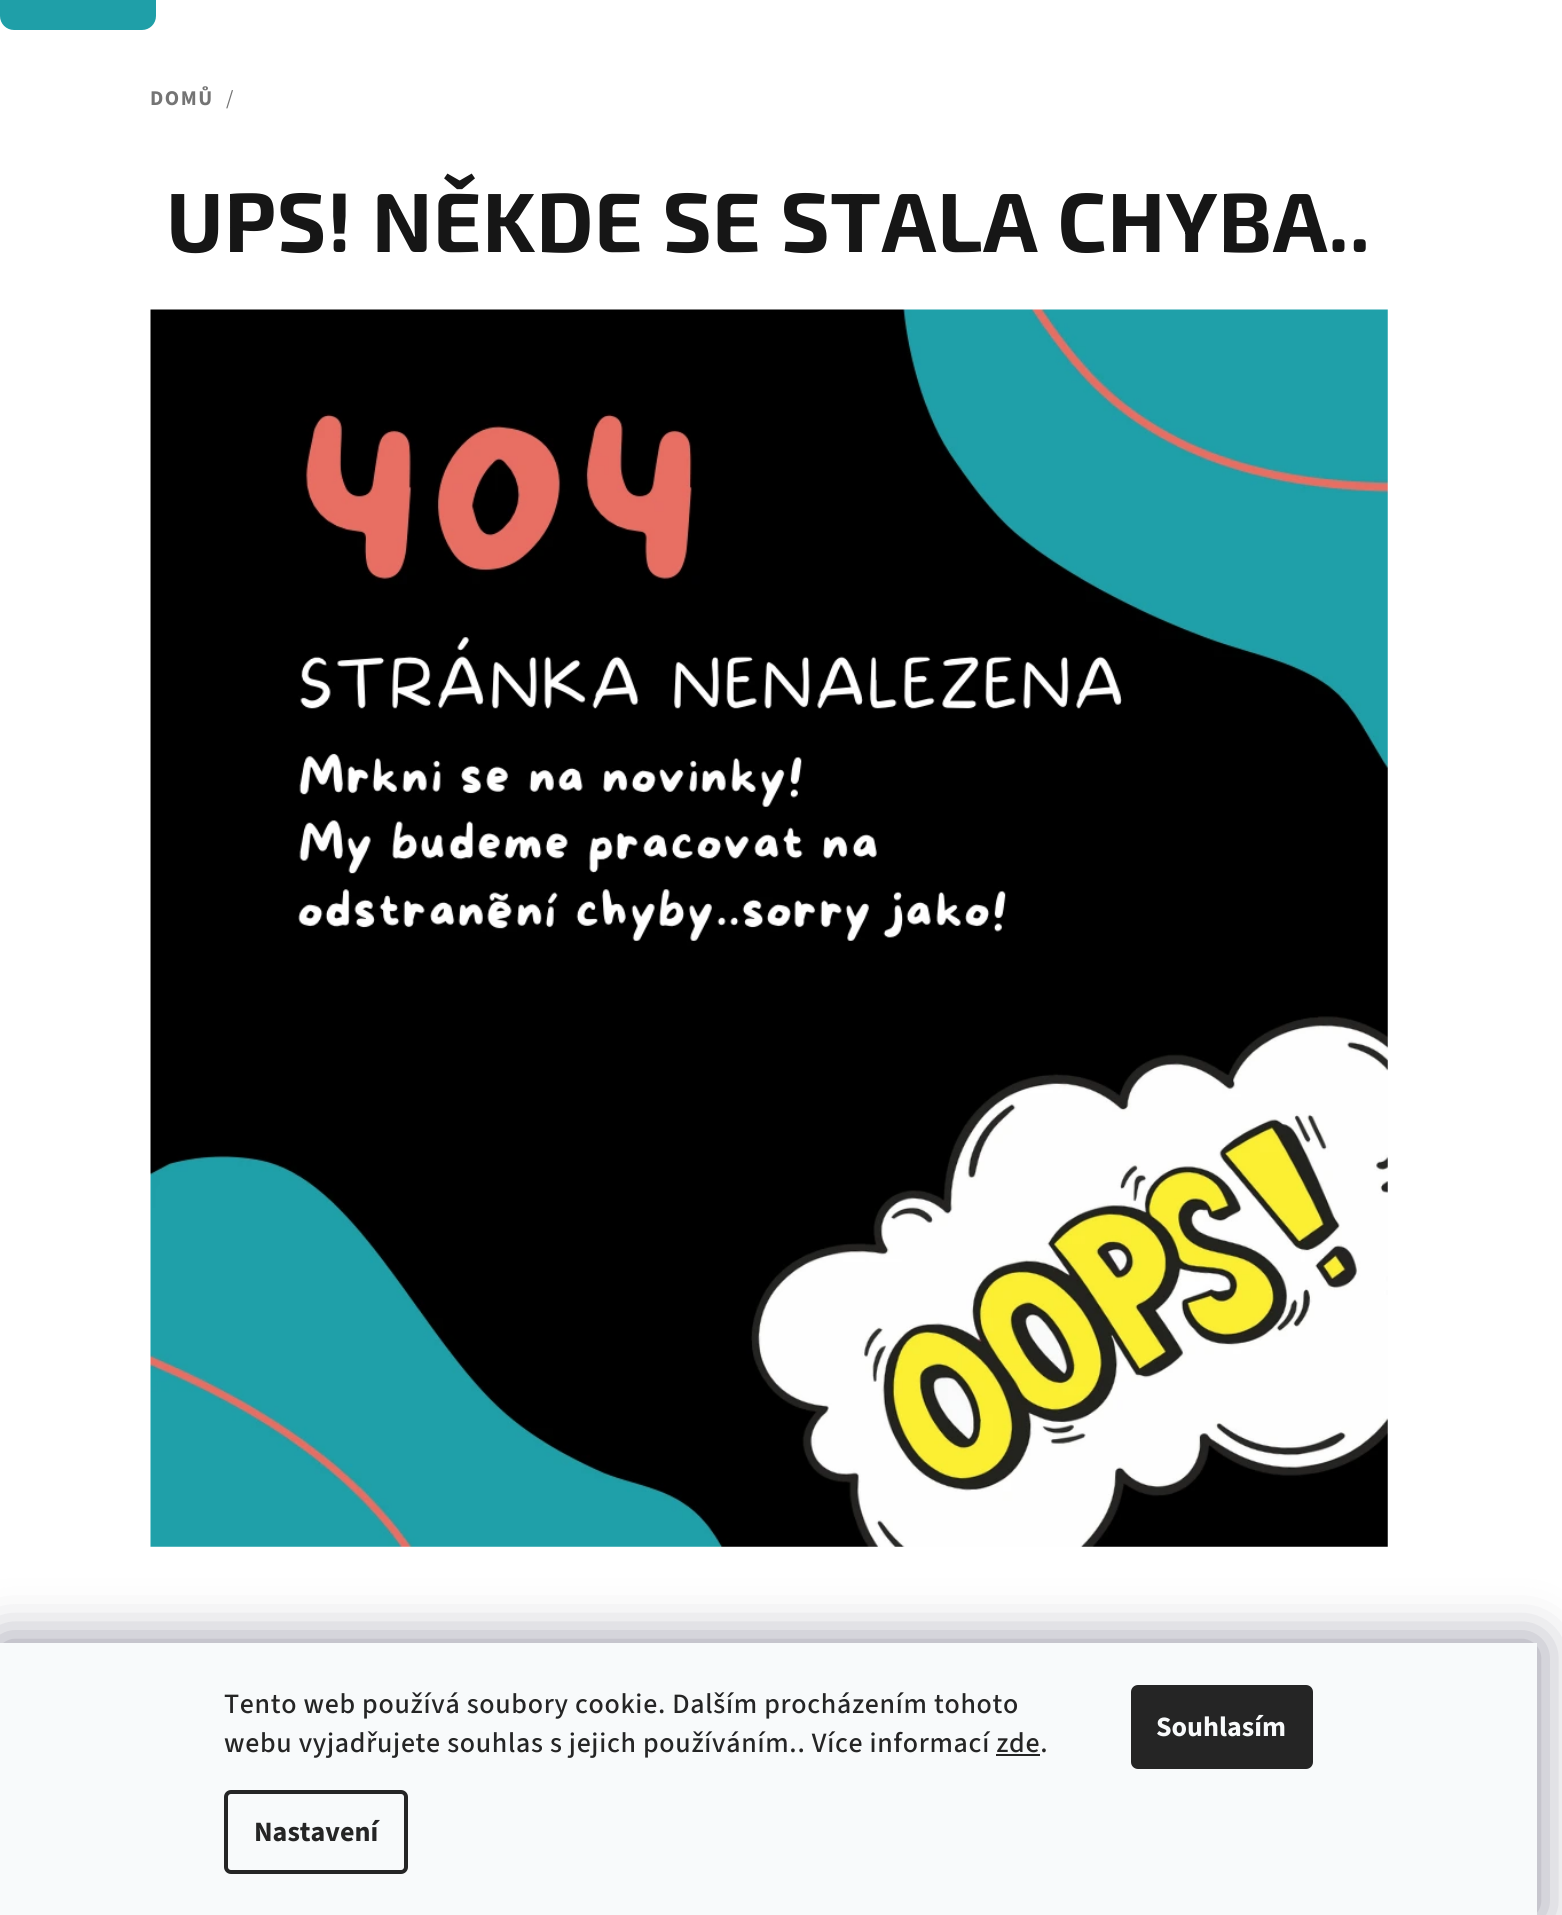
#include <cairo/cairo.h>
#include <math.h>
#include <stddef.h>


static void draw_spaced(cairo_t *cr, double x, double y, const char *s, double letter, double word) {
  cairo_move_to(cr, x, y);
  while (*s) {
    char ch[5] = {0};
    int n = 0;
    do ch[n++] = *s++; while ((*s & 0xC0) == 0x80);
    cairo_show_text(cr, ch);
    cairo_rel_move_to(cr, letter + word * (*ch == ' '), 0);
  }
}

static void rounded_rect(cairo_t *cr, double x, double y, double w, double h, double r) {
  cairo_new_sub_path(cr);
  cairo_arc(cr, x + w - r, y + h - r, r, 0, M_PI / 2);
  cairo_arc(cr, x + r, y + h - r, r, M_PI / 2, M_PI);
  cairo_arc(cr, x + r, y + r, r, M_PI, 1.5 * M_PI);
  cairo_arc(cr, x + w - r, y + r, r, 1.5 * M_PI, 2 * M_PI);
  cairo_close_path(cr);
}

static void draw_shadow(cairo_t *cr, double x, double y, double w, double h, double r, double blur, double alpha) {
  cairo_push_group_with_content(cr, CAIRO_CONTENT_ALPHA);
  cairo_set_operator(cr, CAIRO_OPERATOR_SOURCE);
  for (int i = 15; i >= -15 && fmin(w, h) + blur * i / 3 > 0; i -= 2) {
    double e = blur * i / 6;
    cairo_set_source_rgba(cr, 0, 0, 0, alpha * erfc((i - 1) / 8.5) / 2);
    rounded_rect(cr, x - e, y - e, w + 2 * e, h + 2 * e, fmax(0, fmin(r + e + blur * .6, fmin(w, h) / 2 + e)));
    cairo_fill(cr);
  }
  cairo_pattern_t *soft = cairo_pop_group(cr);
  cairo_mask(cr, soft);
  cairo_pattern_destroy(soft);
}

static void draw_image(cairo_t *cr, const char *path, double x, double y, double w, double h) {
  cairo_surface_t *image = cairo_image_surface_create_from_png(path);
  cairo_save(cr);
  cairo_set_source_surface(cr, image, x, y);
  cairo_rectangle(cr, x, y, w, h);
  cairo_fill(cr);
  cairo_restore(cr);
  cairo_surface_destroy(image);
}

static void draw(cairo_t *cr) {
  cairo_set_source_rgb(cr, 1, 1, 1);
  cairo_paint(cr);
  cairo_set_source_rgb(cr, 31 / 255.0, 159 / 255.0, 168 / 255.0);
  rounded_rect(cr, 0, -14, 156, 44, 14);
  cairo_fill(cr);
  draw_image(cr, "images/1.png", 150, 309, 1238, 1238);
  cairo_set_source_rgb(cr, 27 / 255.0, 25 / 255.0, 57 / 255.0);
  draw_shadow(cr, 0, 1643, 1537, 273, 0, 26, 0.5);
  cairo_set_source_rgb(cr, 248 / 255.0, 250 / 255.0, 251 / 255.0);
  cairo_rectangle(cr, 0, 1643, 1537, 272);
  cairo_fill(cr);
  cairo_set_source_rgb(cr, 37 / 255.0, 37 / 255.0, 37 / 255.0);
  cairo_rectangle(cr, 996, 1754, 44, 2);
  cairo_fill(cr);
  rounded_rect(cr, 226, 1792, 180, 80, 5);
  cairo_set_line_width(cr, 4);
  cairo_stroke(cr);
  rounded_rect(cr, 1131, 1685, 182, 84, 7);
  cairo_fill(cr);
  cairo_select_font_face(cr, "Source Sans 3", CAIRO_FONT_SLANT_NORMAL, CAIRO_FONT_WEIGHT_BOLD);
  cairo_set_font_size(cr, 21);
  cairo_set_source_rgb(cr, 116 / 255.0, 116 / 255.0, 116 / 255.0);
  draw_spaced(cr, 150, 105, "DOMŮ", 1.5, 0);
  cairo_select_font_face(cr, "Source Sans 3", CAIRO_FONT_SLANT_NORMAL, CAIRO_FONT_WEIGHT_NORMAL);
  draw_spaced(cr, 226, 105, "/", 1.5, 0);
  cairo_select_font_face(cr, "Exo 2", CAIRO_FONT_SLANT_NORMAL, CAIRO_FONT_WEIGHT_BOLD);
  cairo_set_font_size(cr, 84);
  cairo_set_source_rgb(cr, 22 / 255.0, 22 / 255.0, 22 / 255.0);
  draw_spaced(cr, 166, 252, "UPS! NĚKDE SE STALA CHYBA..", 0.7, 0);
  cairo_select_font_face(cr, "Source Sans 3 Medium", CAIRO_FONT_SLANT_NORMAL, CAIRO_FONT_WEIGHT_NORMAL);
  cairo_set_font_size(cr, 28);
  cairo_set_source_rgb(cr, 37 / 255.0, 37 / 255.0, 37 / 255.0);
  draw_spaced(cr, 224, 1713, "Tento web používá soubory cookie. Dalším procházením tohoto", 0.7, 0);
  draw_spaced(cr, 224, 1752, "webu vyjadřujete souhlas s jejich používáním.. Více informací zde.", 0.7, 0);
  cairo_select_font_face(cr, "Source Sans 3", CAIRO_FONT_SLANT_NORMAL, CAIRO_FONT_WEIGHT_BOLD);
  cairo_move_to(cr, 254, 1841);
  cairo_show_text(cr, "Nastavení");
  cairo_set_source_rgb(cr, 248 / 255.0, 250 / 255.0, 251 / 255.0);
  cairo_move_to(cr, 1156, 1736);
  cairo_show_text(cr, "Souhlasím");
}

int main(void) {
  cairo_surface_t *surface = cairo_image_surface_create(CAIRO_FORMAT_RGB24, 1562, 1915);
  cairo_t *cr = cairo_create(surface);
  cairo_font_options_t *options = cairo_font_options_create();
  cairo_font_options_set_hint_metrics(options, CAIRO_HINT_METRICS_OFF);
  cairo_font_options_set_hint_style(options, CAIRO_HINT_STYLE_NONE);
  cairo_set_font_options(cr, options);
  cairo_set_miter_limit(cr, 4);
  draw(cr);
  cairo_surface_write_to_png(surface, "out.png");
  cairo_font_options_destroy(options);
  cairo_destroy(cr);
  cairo_surface_destroy(surface);
  return 0;
}
